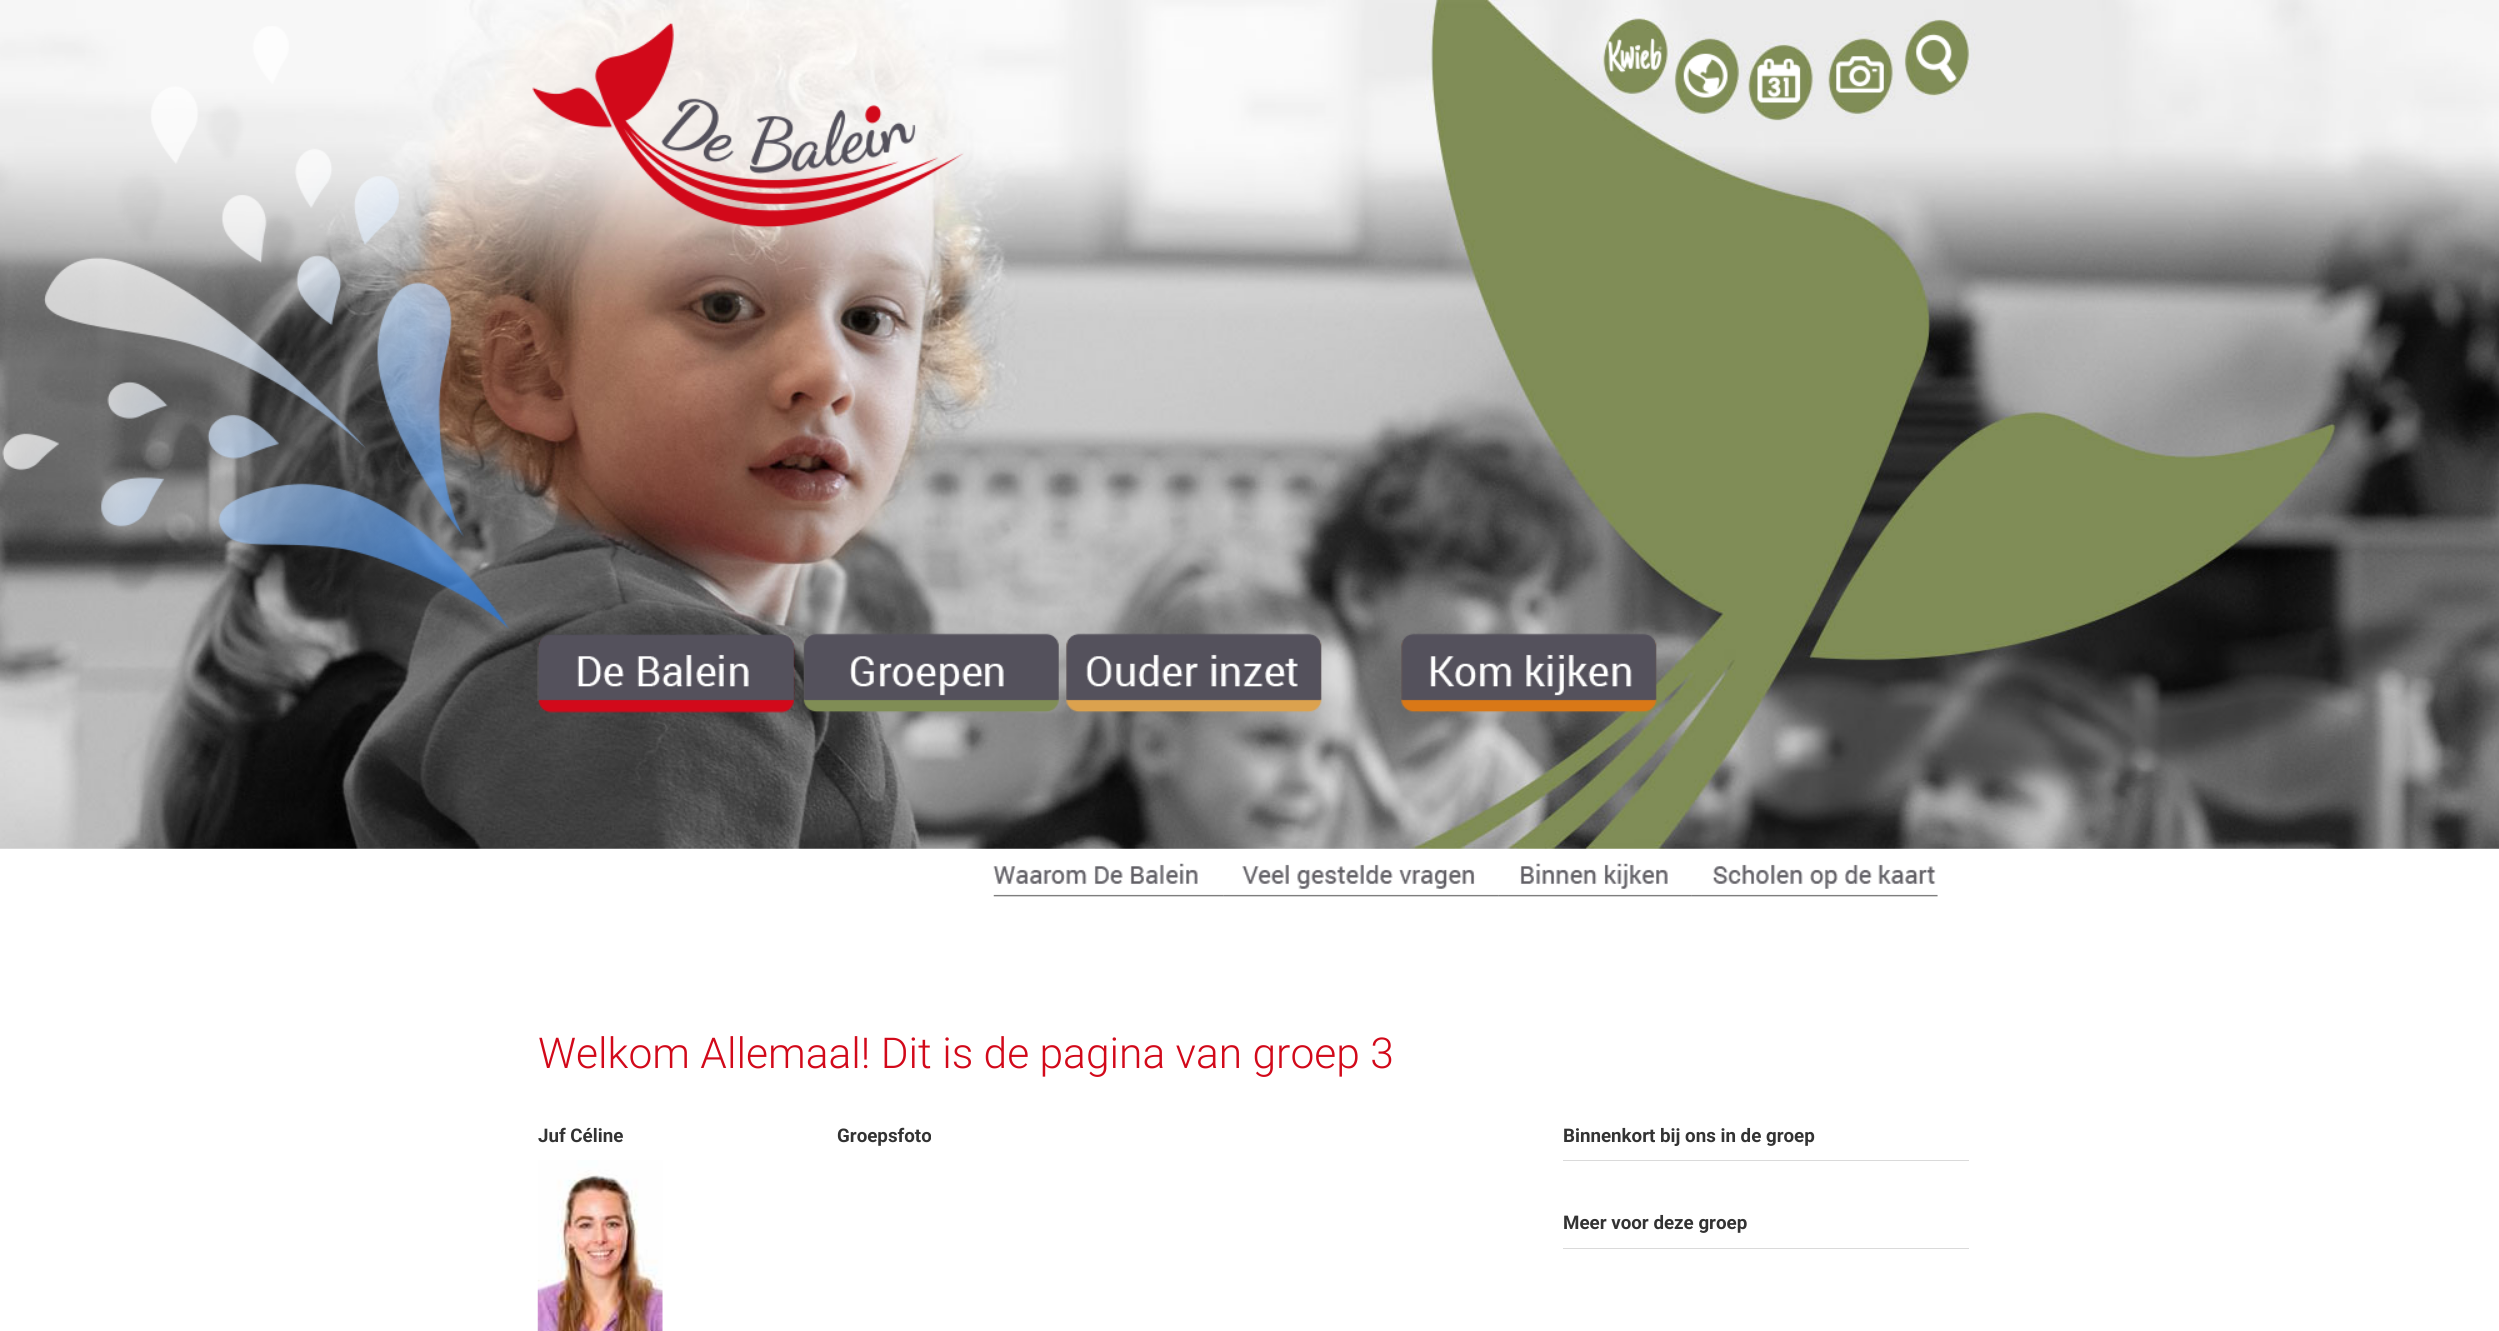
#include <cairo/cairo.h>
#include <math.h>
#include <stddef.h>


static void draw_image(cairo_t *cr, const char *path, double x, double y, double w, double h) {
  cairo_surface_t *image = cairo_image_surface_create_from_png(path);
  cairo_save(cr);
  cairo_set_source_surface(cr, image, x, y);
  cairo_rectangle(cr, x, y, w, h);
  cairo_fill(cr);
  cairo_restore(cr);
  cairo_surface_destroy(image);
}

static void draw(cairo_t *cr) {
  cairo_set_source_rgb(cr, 1, 1, 1);
  cairo_paint(cr);
  draw_image(cr, "images/1.png", 0, 0, 2499, 849);
  draw_image(cr, "images/2.png", 2, 26, 507, 615);
  draw_image(cr, "images/3.png", 532, 23, 432, 205);
  draw_image(cr, "images/4.png", 1607, 38, 56, 35);
  draw_image(cr, "images/5.png", 1683, 53, 45, 45);
  draw_image(cr, "images/6.png", 1757, 58, 44, 45);
  draw_image(cr, "images/7.png", 1836, 56, 48, 37);
  draw_image(cr, "images/8.png", 1915, 33, 42, 50);
  draw_image(cr, "images/13.png", 537, 646, 2, 55);
  draw_image(cr, "images/9.png", 538, 634, 257, 79);
  draw_image(cr, "images/10.png", 803, 633, 256, 80);
  draw_image(cr, "images/11.png", 1066, 633, 256, 80);
  draw_image(cr, "images/12.png", 1401, 633, 256, 80);
  draw_image(cr, "images/14.png", 993, 863, 231, 34);
  draw_image(cr, "images/15.png", 1223, 864, 276, 33);
  draw_image(cr, "images/16.png", 1498, 863, 194, 34);
  draw_image(cr, "images/17.png", 1691, 864, 247, 33);
  draw_image(cr, "images/18.png", 537, 1160, 126, 171);
  cairo_set_source_rgb(cr, 218 / 255.0, 218 / 255.0, 218 / 255.0);
  cairo_rectangle(cr, 1563, 1160, 406, 1);
  cairo_fill(cr);
  cairo_rectangle(cr, 1563, 1248, 406, 1);
  cairo_fill(cr);
  cairo_select_font_face(cr, "Roboto Light", CAIRO_FONT_SLANT_NORMAL, CAIRO_FONT_WEIGHT_NORMAL);
  cairo_set_font_size(cr, 42.5);
  cairo_set_source_rgb(cr, 210 / 255.0, 9 / 255.0, 26 / 255.0);
  cairo_move_to(cr, 538, 1068);
  cairo_show_text(cr, "Welkom Allemaal! Dit is de pagina van groep 3");
  cairo_select_font_face(cr, "Roboto", CAIRO_FONT_SLANT_NORMAL, CAIRO_FONT_WEIGHT_BOLD);
  cairo_set_font_size(cr, 18.75);
  cairo_set_source_rgb(cr, 51 / 255.0, 51 / 255.0, 51 / 255.0);
  cairo_move_to(cr, 538, 1142);
  cairo_show_text(cr, "Juf Céline");
  cairo_move_to(cr, 837, 1142);
  cairo_show_text(cr, "Groepsfoto");
  cairo_move_to(cr, 1563, 1142);
  cairo_show_text(cr, "Binnenkort bij ons in de groep");
  cairo_move_to(cr, 1563, 1229);
  cairo_show_text(cr, "Meer voor deze groep");
}

int main(void) {
  cairo_surface_t *surface = cairo_image_surface_create(CAIRO_FORMAT_RGB24, 2499, 1331);
  cairo_t *cr = cairo_create(surface);
  cairo_font_options_t *options = cairo_font_options_create();
  cairo_font_options_set_hint_metrics(options, CAIRO_HINT_METRICS_OFF);
  cairo_font_options_set_hint_style(options, CAIRO_HINT_STYLE_NONE);
  cairo_set_font_options(cr, options);
  cairo_set_miter_limit(cr, 4);
  draw(cr);
  cairo_surface_write_to_png(surface, "out.png");
  cairo_font_options_destroy(options);
  cairo_destroy(cr);
  cairo_surface_destroy(surface);
  return 0;
}
